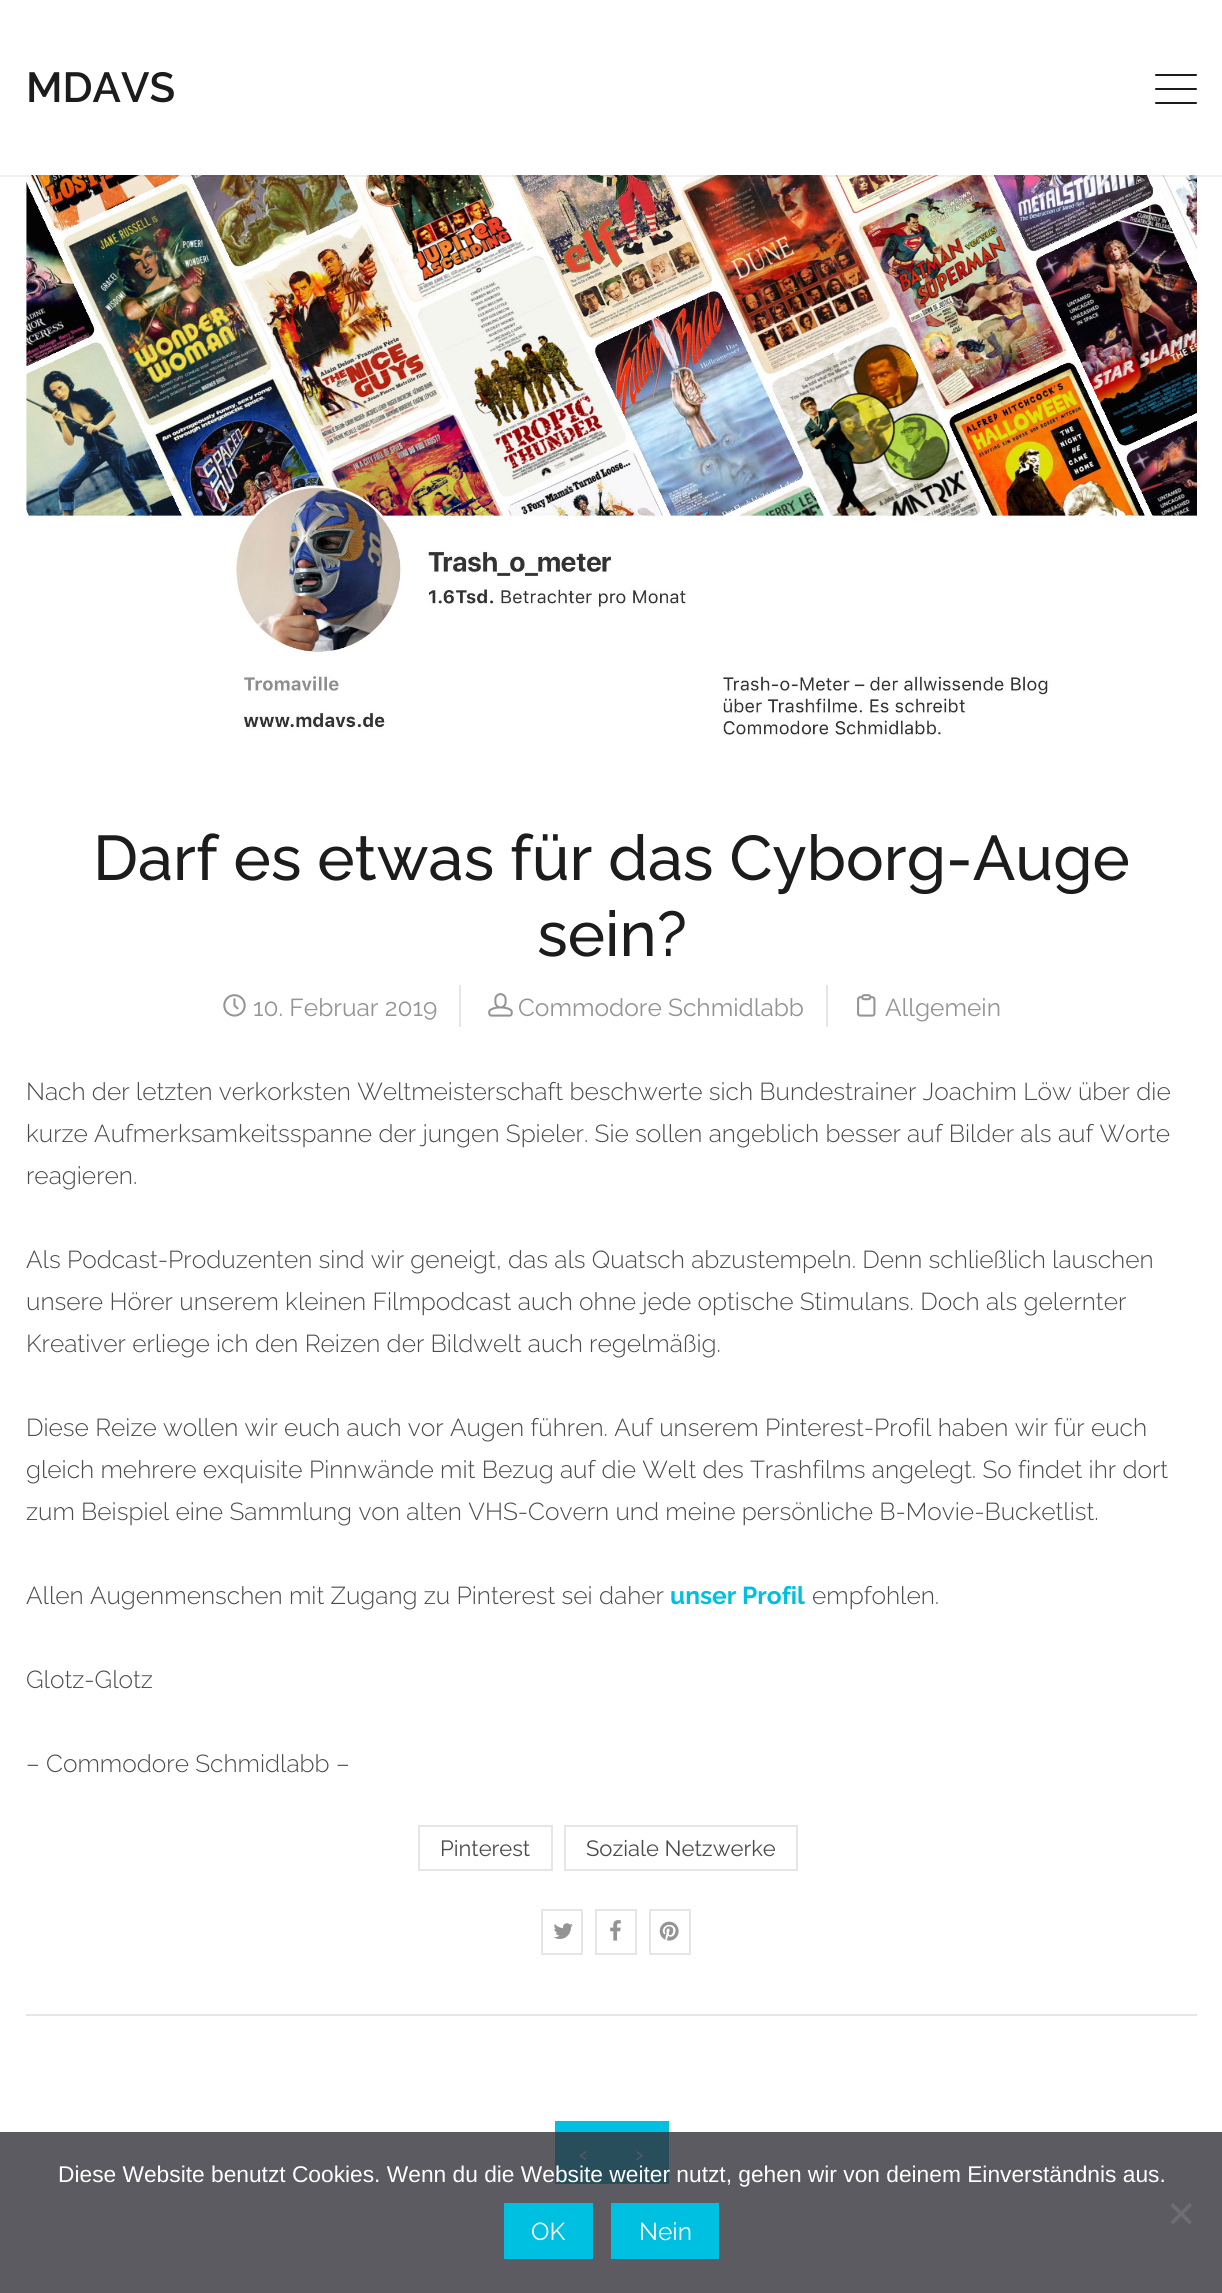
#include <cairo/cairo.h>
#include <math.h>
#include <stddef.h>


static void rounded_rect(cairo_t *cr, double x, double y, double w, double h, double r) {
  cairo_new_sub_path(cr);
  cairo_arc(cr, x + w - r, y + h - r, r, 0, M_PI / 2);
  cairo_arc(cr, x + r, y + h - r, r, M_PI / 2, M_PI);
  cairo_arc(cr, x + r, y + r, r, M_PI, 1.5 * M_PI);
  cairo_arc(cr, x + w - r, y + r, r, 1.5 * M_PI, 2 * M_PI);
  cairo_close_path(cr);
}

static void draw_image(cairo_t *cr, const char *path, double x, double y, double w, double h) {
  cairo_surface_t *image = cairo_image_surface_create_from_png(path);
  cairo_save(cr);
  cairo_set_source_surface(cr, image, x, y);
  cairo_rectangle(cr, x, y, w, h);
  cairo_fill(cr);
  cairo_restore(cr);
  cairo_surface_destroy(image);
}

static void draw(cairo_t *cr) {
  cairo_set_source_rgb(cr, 1, 1, 1);
  cairo_paint(cr);
  cairo_set_source_rgb(cr, 91 / 255.0, 91 / 255.0, 97 / 255.0);
  cairo_rectangle(cr, 0, 2132, 1222, 161);
  cairo_fill(cr);
  draw_image(cr, "images/1.png", 26, 175, 1171, 563);
  cairo_set_source_rgba(cr, 0, 0, 0, 0.06);
  cairo_rectangle(cr, 0, 175, 1222, 2);
  cairo_fill(cr);
  cairo_set_source_rgb(cr, 28 / 255.0, 28 / 255.0, 28 / 255.0);
  rounded_rect(cr, 1155, 74, 42, 2, 1);
  cairo_fill(cr);
  rounded_rect(cr, 1155, 88, 42, 2, 1);
  cairo_fill(cr);
  rounded_rect(cr, 1155, 102, 42, 2, 1);
  cairo_fill(cr);
  cairo_set_source_rgb(cr, 230 / 255.0, 230 / 255.0, 230 / 255.0);
  cairo_rectangle(cr, 459, 985, 2, 42);
  cairo_fill(cr);
  draw_image(cr, "images/2.png", 223, 994, 23, 23);
  cairo_rectangle(cr, 826, 985, 2, 42);
  cairo_fill(cr);
  draw_image(cr, "images/3.png", 488, 993, 25, 24);
  draw_image(cr, "images/4.png", 857, 994, 19, 23);
  cairo_rectangle(cr, 419, 1826, 133, 44);
  cairo_stroke(cr);
  cairo_rectangle(cr, 565, 1826, 232, 44);
  cairo_stroke(cr);
  cairo_rectangle(cr, 542, 1910, 40, 44);
  cairo_stroke(cr);
  draw_image(cr, "images/5.png", 553, 1923, 20, 16);
  cairo_rectangle(cr, 596, 1910, 40, 44);
  cairo_stroke(cr);
  draw_image(cr, "images/6.png", 610, 1920, 11, 21);
  cairo_rectangle(cr, 650, 1910, 40, 44);
  cairo_stroke(cr);
  draw_image(cr, "images/7.png", 659, 1921, 20, 20);
  cairo_rectangle(cr, 26, 2014, 1171, 2);
  cairo_fill(cr);
  cairo_set_source_rgb(cr, 0, 192 / 255.0, 225 / 255.0);
  cairo_rectangle(cr, 555, 2121, 114, 11);
  cairo_fill(cr);
  cairo_set_source_rgb(cr, 40 / 255.0, 78 / 255.0, 91 / 255.0);
  cairo_rectangle(cr, 555, 2132, 114, 52);
  cairo_fill(cr);
  cairo_set_source_rgb(cr, 110 / 255.0, 110 / 255.0, 113 / 255.0);
  cairo_new_path(cr);
  cairo_move_to(cr, 1189.5, 2203);
  cairo_line_to(cr, 1192, 2205.5);
  cairo_line_to(cr, 1173, 2224.5);
  cairo_line_to(cr, 1170.5, 2222);
  cairo_close_path(cr);
  cairo_fill(cr);
  cairo_new_path(cr);
  cairo_move_to(cr, 1170.5, 2205.5);
  cairo_line_to(cr, 1173, 2203);
  cairo_line_to(cr, 1192, 2222);
  cairo_line_to(cr, 1189.5, 2224.5);
  cairo_close_path(cr);
  cairo_fill(cr);
  cairo_set_source_rgb(cr, 0, 192 / 255.0, 225 / 255.0);
  cairo_rectangle(cr, 504, 2203, 89, 56);
  cairo_fill(cr);
  cairo_rectangle(cr, 611, 2203, 108, 56);
  cairo_fill(cr);
  cairo_select_font_face(cr, "Raleway SemiBold", CAIRO_FONT_SLANT_NORMAL, CAIRO_FONT_WEIGHT_NORMAL);
  cairo_set_font_size(cr, 42);
  cairo_set_source_rgb(cr, 28 / 255.0, 28 / 255.0, 28 / 255.0);
  cairo_move_to(cr, 26, 102);
  cairo_show_text(cr, "MDAVS");
  cairo_select_font_face(cr, "Raleway Medium", CAIRO_FONT_SLANT_NORMAL, CAIRO_FONT_WEIGHT_NORMAL);
  cairo_set_font_size(cr, 63);
  cairo_move_to(cr, 93, 880);
  cairo_show_text(cr, "Darf es etwas für das Cyborg-Auge");
  cairo_move_to(cr, 537, 956);
  cairo_show_text(cr, "sein?");
  cairo_select_font_face(cr, "Raleway", CAIRO_FONT_SLANT_NORMAL, CAIRO_FONT_WEIGHT_NORMAL);
  cairo_set_font_size(cr, 24.5);
  cairo_set_source_rgb(cr, 149 / 255.0, 148 / 255.0, 148 / 255.0);
  cairo_move_to(cr, 253, 1016);
  cairo_show_text(cr, "10. Februar 2019");
  cairo_move_to(cr, 518, 1016);
  cairo_show_text(cr, "Commodore Schmidlabb");
  cairo_move_to(cr, 885, 1016);
  cairo_show_text(cr, "Allgemein");
  cairo_select_font_face(cr, "Raleway Light", CAIRO_FONT_SLANT_NORMAL, CAIRO_FONT_WEIGHT_NORMAL);
  cairo_set_source_rgb(cr, 76 / 255.0, 76 / 255.0, 76 / 255.0);
  cairo_move_to(cr, 26, 1100);
  cairo_show_text(cr, "Nach der letzten verkorksten Weltmeisterschaft beschwerte sich Bundestrainer Joachim Löw über die");
  cairo_move_to(cr, 26, 1142);
  cairo_show_text(cr, "kurze Aufmerksamkeitsspanne der jungen Spieler. Sie sollen angeblich besser auf Bilder als auf Worte");
  cairo_move_to(cr, 26, 1184);
  cairo_show_text(cr, "reagieren.");
  cairo_move_to(cr, 26, 1268);
  cairo_show_text(cr, "Als Podcast-Produzenten sind wir geneigt, das als Quatsch abzustempeln. Denn schließlich lauschen");
  cairo_move_to(cr, 26, 1310);
  cairo_show_text(cr, "unsere Hörer unserem kleinen Filmpodcast auch ohne jede optische Stimulans. Doch als gelernter");
  cairo_move_to(cr, 26, 1352);
  cairo_show_text(cr, "Kreativer erliege ich den Reizen der Bildwelt auch regelmäßig.");
  cairo_move_to(cr, 26, 1436);
  cairo_show_text(cr, "Diese Reize wollen wir euch auch vor Augen führen. Auf unserem Pinterest-Profil haben wir für euch");
  cairo_move_to(cr, 26, 1478);
  cairo_show_text(cr, "gleich mehrere exquisite Pinnwände mit Bezug auf die Welt des Trashfilms angelegt. So findet ihr dort");
  cairo_move_to(cr, 26, 1520);
  cairo_show_text(cr, "zum Beispiel eine Sammlung von alten VHS-Covern und meine persönliche B-Movie-Bucketlist.");
  cairo_move_to(cr, 26, 1604);
  cairo_show_text(cr, "Allen Augenmenschen mit Zugang zu Pinterest sei daher");
  cairo_select_font_face(cr, "Raleway", CAIRO_FONT_SLANT_NORMAL, CAIRO_FONT_WEIGHT_BOLD);
  cairo_set_source_rgb(cr, 0, 192 / 255.0, 225 / 255.0);
  cairo_move_to(cr, 670, 1604);
  cairo_show_text(cr, "unser Profil");
  cairo_select_font_face(cr, "Raleway Light", CAIRO_FONT_SLANT_NORMAL, CAIRO_FONT_WEIGHT_NORMAL);
  cairo_set_source_rgb(cr, 76 / 255.0, 76 / 255.0, 76 / 255.0);
  cairo_move_to(cr, 812, 1604);
  cairo_show_text(cr, "empfohlen.");
  cairo_move_to(cr, 26, 1688);
  cairo_show_text(cr, "Glotz-Glotz");
  cairo_move_to(cr, 26, 1772);
  cairo_show_text(cr, "– Commodore Schmidlabb –");
  cairo_select_font_face(cr, "Raleway", CAIRO_FONT_SLANT_NORMAL, CAIRO_FONT_WEIGHT_NORMAL);
  cairo_set_font_size(cr, 22);
  cairo_move_to(cr, 440, 1856);
  cairo_show_text(cr, "Pinterest");
  cairo_move_to(cr, 586, 1856);
  cairo_show_text(cr, "Soziale Netzwerke");
  cairo_set_font_size(cr, 24.5);
  cairo_set_source_rgb(cr, 91 / 255.0, 91 / 255.0, 97 / 255.0);
  cairo_move_to(cr, 579, 2162);
  cairo_show_text(cr, "‹");
  cairo_move_to(cr, 635, 2162);
  cairo_show_text(cr, "›");
  cairo_select_font_face(cr, "Liberation Sans", CAIRO_FONT_SLANT_NORMAL, CAIRO_FONT_WEIGHT_NORMAL);
  cairo_set_font_size(cr, 22.75);
  cairo_set_source_rgb(cr, 1, 1, 1);
  cairo_move_to(cr, 58, 2182);
  cairo_show_text(cr, "Diese Website benutzt Cookies. Wenn du die Website weiter nutzt, gehen wir von deinem Einverständnis aus.");
  cairo_select_font_face(cr, "Raleway", CAIRO_FONT_SLANT_NORMAL, CAIRO_FONT_WEIGHT_NORMAL);
  cairo_set_font_size(cr, 24.5);
  cairo_move_to(cr, 531, 2240);
  cairo_show_text(cr, "OK");
  cairo_move_to(cr, 639, 2240);
  cairo_show_text(cr, "Nein");
}

int main(void) {
  cairo_surface_t *surface = cairo_image_surface_create(CAIRO_FORMAT_RGB24, 1222, 2293);
  cairo_t *cr = cairo_create(surface);
  cairo_font_options_t *options = cairo_font_options_create();
  cairo_font_options_set_hint_metrics(options, CAIRO_HINT_METRICS_OFF);
  cairo_font_options_set_hint_style(options, CAIRO_HINT_STYLE_NONE);
  cairo_set_font_options(cr, options);
  cairo_set_miter_limit(cr, 4);
  draw(cr);
  cairo_surface_write_to_png(surface, "out.png");
  cairo_font_options_destroy(options);
  cairo_destroy(cr);
  cairo_surface_destroy(surface);
  return 0;
}
